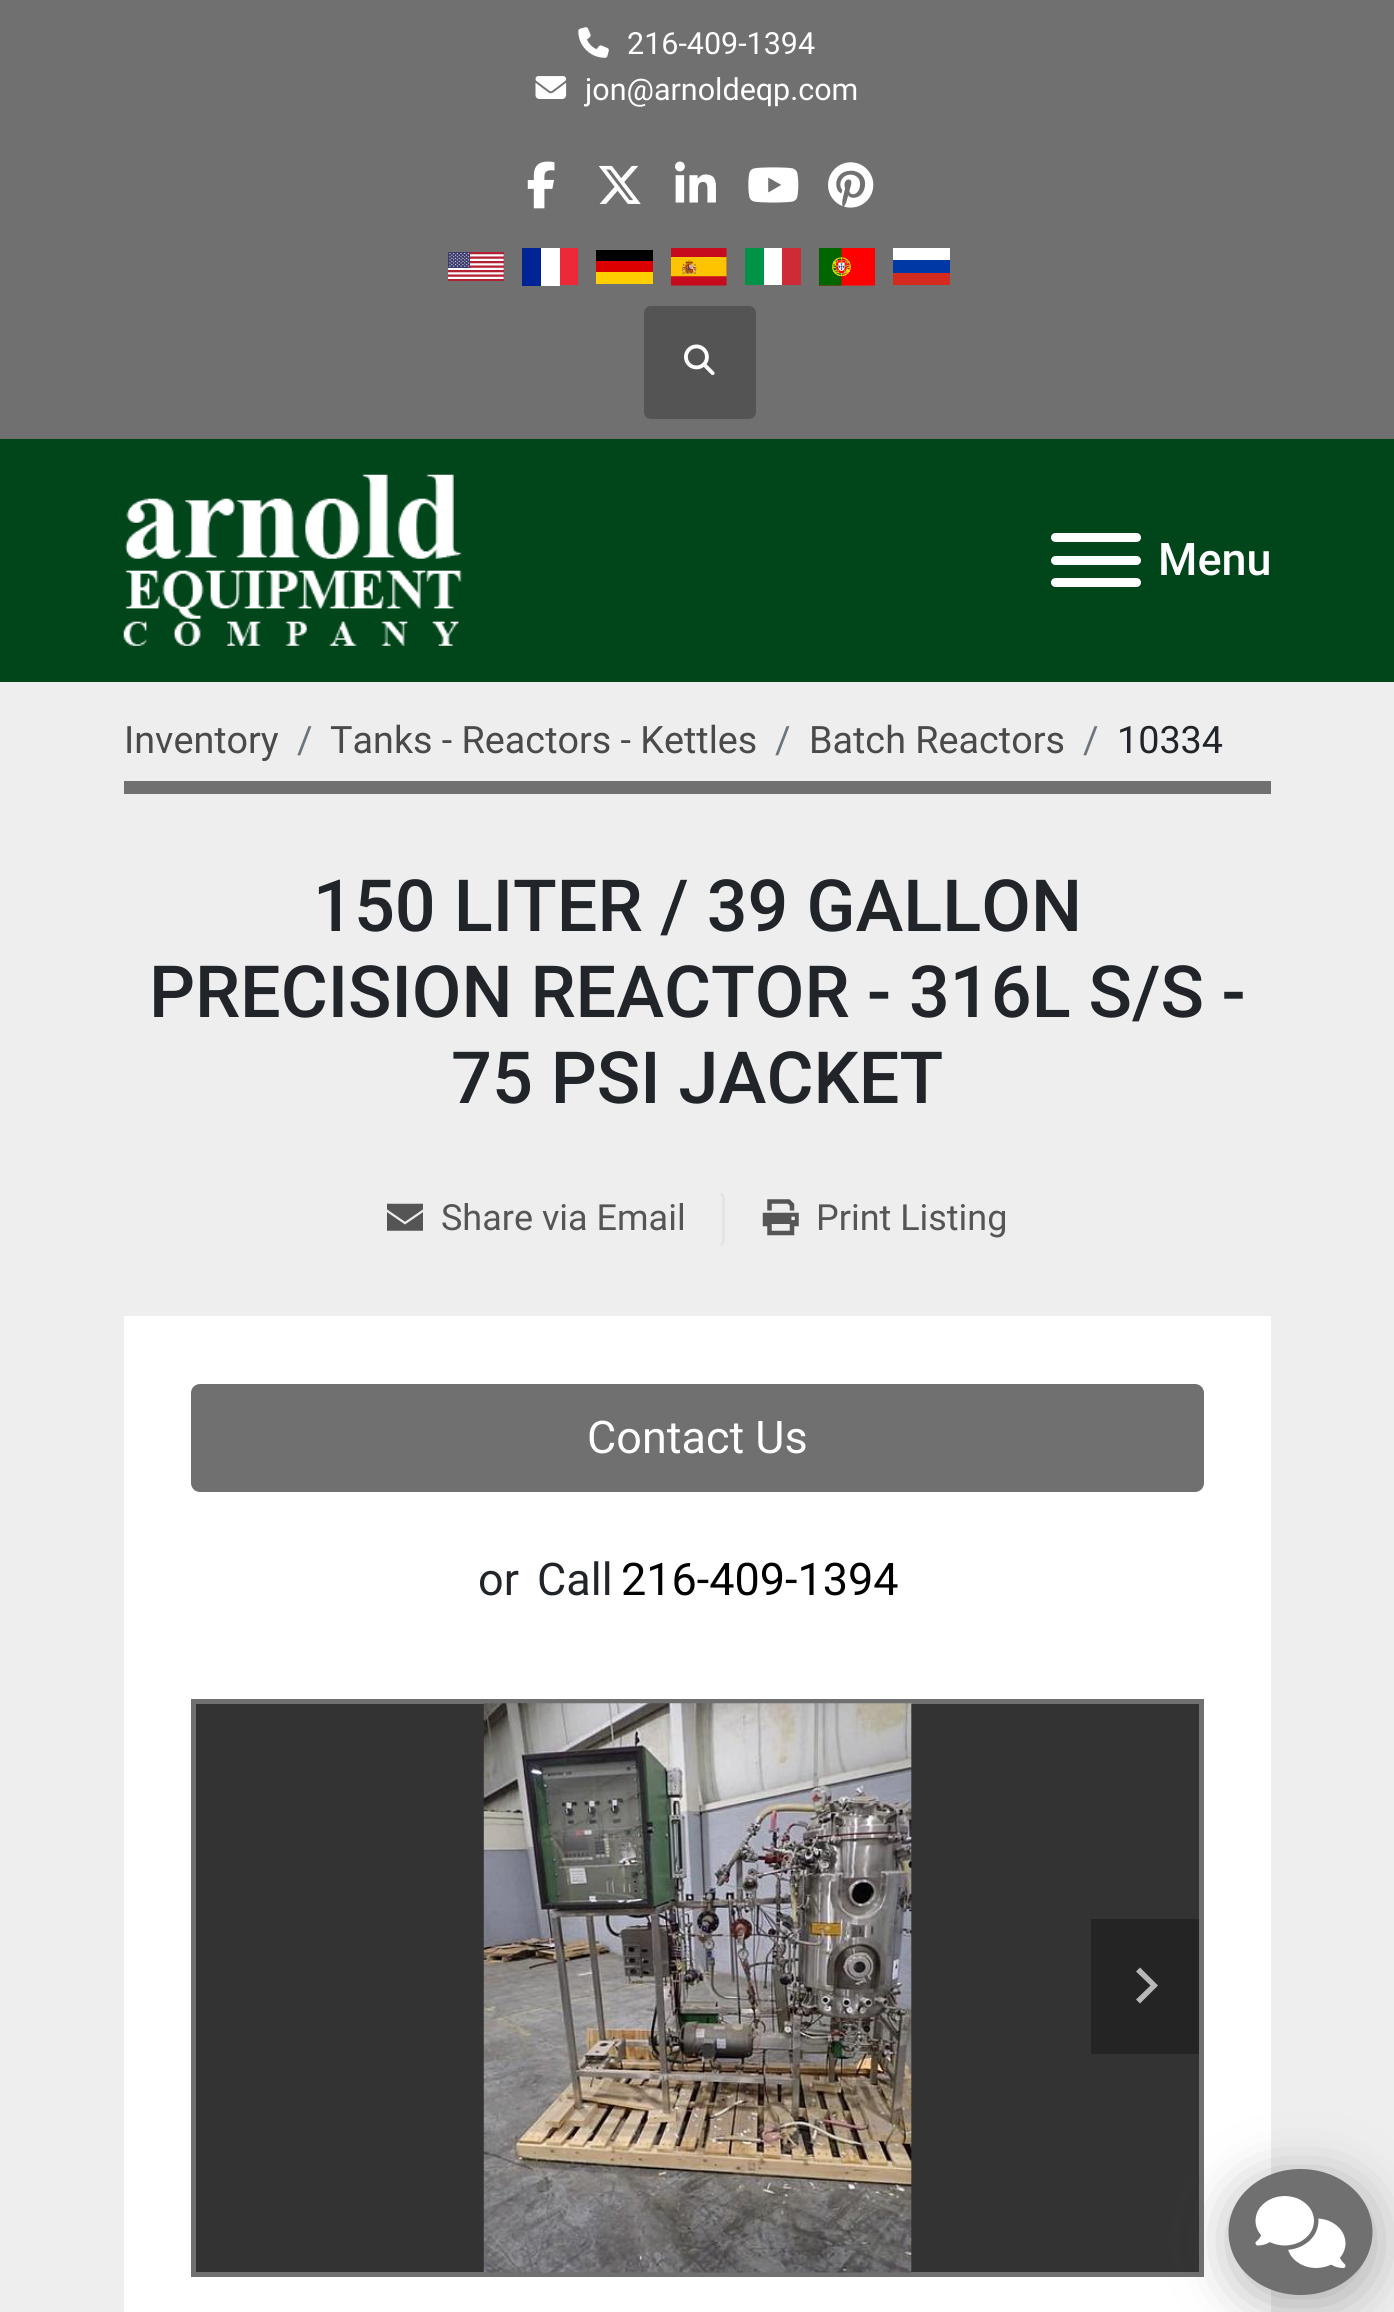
#include <cairo/cairo.h>
#include <math.h>
#include <stddef.h>


static void rounded_rect(cairo_t *cr, double x, double y, double w, double h, double r) {
  cairo_new_sub_path(cr);
  cairo_arc(cr, x + w - r, y + h - r, r, 0, M_PI / 2);
  cairo_arc(cr, x + r, y + h - r, r, M_PI / 2, M_PI);
  cairo_arc(cr, x + r, y + r, r, M_PI, 1.5 * M_PI);
  cairo_arc(cr, x + w - r, y + r, r, 1.5 * M_PI, 2 * M_PI);
  cairo_close_path(cr);
}

static void draw_shadow(cairo_t *cr, double x, double y, double w, double h, double r, double blur, double alpha) {
  cairo_push_group_with_content(cr, CAIRO_CONTENT_ALPHA);
  cairo_set_operator(cr, CAIRO_OPERATOR_SOURCE);
  for (int i = 15; i >= -15 && fmin(w, h) + blur * i / 3 > 0; i -= 2) {
    double e = blur * i / 6;
    cairo_set_source_rgba(cr, 0, 0, 0, alpha * erfc((i - 1) / 8.5) / 2);
    rounded_rect(cr, x - e, y - e, w + 2 * e, h + 2 * e, fmax(0, fmin(r + e + blur * .6, fmin(w, h) / 2 + e)));
    cairo_fill(cr);
  }
  cairo_pattern_t *soft = cairo_pop_group(cr);
  cairo_mask(cr, soft);
  cairo_pattern_destroy(soft);
}

static void draw_image(cairo_t *cr, const char *path, double x, double y, double w, double h) {
  cairo_surface_t *image = cairo_image_surface_create_from_png(path);
  cairo_save(cr);
  cairo_set_source_surface(cr, image, x, y);
  cairo_rectangle(cr, x, y, w, h);
  cairo_fill(cr);
  cairo_restore(cr);
  cairo_surface_destroy(image);
}

static void draw(cairo_t *cr) {
  cairo_set_source_rgb(cr, 238 / 255.0, 238 / 255.0, 238 / 255.0);
  cairo_paint(cr);
  cairo_set_source_rgb(cr, 112 / 255.0, 112 / 255.0, 112 / 255.0);
  cairo_rectangle(cr, 0, 0, 1394, 439);
  cairo_fill(cr);
  draw_image(cr, "images/1.png", 578, 27, 31, 31);
  draw_image(cr, "images/2.png", 535, 76, 32, 23);
  draw_image(cr, "images/3.png", 527, 161, 28, 48);
  draw_image(cr, "images/4.png", 598, 165, 43, 39);
  draw_image(cr, "images/5.png", 675, 161, 41, 42);
  draw_image(cr, "images/6.png", 748, 167, 51, 36);
  draw_image(cr, "images/7.png", 828, 162, 46, 46);
  draw_image(cr, "images/8.png", 448, 252, 56, 29);
  cairo_set_source_rgb(cr, 0, 35 / 255.0, 149 / 255.0);
  cairo_rectangle(cr, 522, 248, 19, 38);
  cairo_fill(cr);
  cairo_set_source_rgb(cr, 1, 1, 1);
  cairo_rectangle(cr, 541, 248, 19, 38);
  cairo_fill(cr);
  cairo_set_source_rgb(cr, 237 / 255.0, 41 / 255.0, 57 / 255.0);
  cairo_rectangle(cr, 560, 248, 18, 37);
  cairo_fill(cr);
  cairo_set_source_rgb(cr, 0, 0, 0);
  cairo_rectangle(cr, 596, 250, 57, 11);
  cairo_fill(cr);
  cairo_set_source_rgb(cr, 221 / 255.0, 0, 0);
  cairo_rectangle(cr, 596, 261, 57, 11);
  cairo_fill(cr);
  cairo_set_source_rgb(cr, 1, 206 / 255.0, 0);
  cairo_rectangle(cr, 596, 272, 57, 12);
  cairo_fill(cr);
  draw_image(cr, "images/9.png", 671, 248, 56, 38);
  cairo_set_source_rgb(cr, 0, 146 / 255.0, 70 / 255.0);
  cairo_rectangle(cr, 745, 248, 19, 37);
  cairo_fill(cr);
  cairo_set_source_rgb(cr, 1, 1, 1);
  cairo_rectangle(cr, 764, 248, 18, 37);
  cairo_fill(cr);
  cairo_set_source_rgb(cr, 206 / 255.0, 43 / 255.0, 55 / 255.0);
  cairo_rectangle(cr, 782, 248, 19, 37);
  cairo_fill(cr);
  draw_image(cr, "images/10.png", 819, 248, 56, 38);
  cairo_set_source_rgb(cr, 1, 1, 1);
  cairo_rectangle(cr, 893, 248, 57, 12);
  cairo_fill(cr);
  cairo_set_source_rgb(cr, 0, 57 / 255.0, 166 / 255.0);
  cairo_rectangle(cr, 893, 260, 57, 13);
  cairo_fill(cr);
  cairo_set_source_rgb(cr, 213 / 255.0, 43 / 255.0, 30 / 255.0);
  cairo_rectangle(cr, 893, 273, 57, 12);
  cairo_fill(cr);
  cairo_set_source_rgb(cr, 84 / 255.0, 84 / 255.0, 84 / 255.0);
  rounded_rect(cr, 644, 306, 112, 113, 7);
  cairo_fill(cr);
  draw_image(cr, "images/11.png", 684, 344, 31, 32);
  cairo_set_source_rgb(cr, 0, 70 / 255.0, 26 / 255.0);
  cairo_rectangle(cr, 0, 439, 1394, 243);
  cairo_fill(cr);
  draw_image(cr, "images/12.png", 123, 474, 339, 172);
  cairo_set_source_rgb(cr, 1, 1, 1);
  rounded_rect(cr, 1051, 556, 90, 9, 4.5);
  cairo_fill(cr);
  rounded_rect(cr, 1051, 533, 90, 9, 4.5);
  cairo_fill(cr);
  rounded_rect(cr, 1051, 578, 90, 9, 4.5);
  cairo_fill(cr);
  cairo_set_source_rgb(cr, 112 / 255.0, 112 / 255.0, 112 / 255.0);
  cairo_rectangle(cr, 124, 781, 1147, 13);
  cairo_fill(cr);
  cairo_new_path(cr);
  cairo_move_to(cr, 721, 1193.5);
  cairo_curve_to(cr, 722.5, 1195, 723.5, 1197, 723.5, 1199);
  cairo_line_to(cr, 723.5, 1240);
  cairo_curve_to(cr, 723.5, 1242, 722.5, 1244, 721, 1245.5);
  cairo_set_source_rgb(cr, 222 / 255.0, 226 / 255.0, 230 / 255.0);
  cairo_set_line_width(cr, 2.2);
  cairo_stroke(cr);
  draw_image(cr, "images/13.png", 387, 1203, 36, 28);
  draw_image(cr, "images/14.png", 762, 1199, 37, 37);
  cairo_set_source_rgb(cr, 1, 1, 1);
  cairo_rectangle(cr, 124, 1316, 1147, 996);
  cairo_fill(cr);
  cairo_set_source_rgb(cr, 112 / 255.0, 112 / 255.0, 112 / 255.0);
  rounded_rect(cr, 192, 1385, 1011, 106, 8);
  cairo_fill_preserve(cr);
  cairo_set_line_width(cr, 2);
  cairo_stroke(cr);
  cairo_set_source_rgb(cr, 51 / 255.0, 51 / 255.0, 51 / 255.0);
  cairo_rectangle(cr, 193.5, 1701.5, 1008, 573);
  cairo_fill_preserve(cr);
  cairo_set_source_rgb(cr, 112 / 255.0, 112 / 255.0, 112 / 255.0);
  cairo_set_line_width(cr, 5);
  cairo_stroke(cr);
  draw_image(cr, "images/15.png", 483, 1703, 429, 570);
  cairo_set_source_rgb(cr, 36 / 255.0, 36 / 255.0, 36 / 255.0);
  cairo_rectangle(cr, 1091, 1919, 108, 135);
  cairo_fill(cr);
  cairo_set_source_rgb(cr, 184 / 255.0, 184 / 255.0, 184 / 255.0);
  cairo_new_path(cr);
  cairo_move_to(cr, 1158, 1985.5);
  cairo_line_to(cr, 1140, 2003.5);
  cairo_line_to(cr, 1136, 1999.5);
  cairo_line_to(cr, 1150.5, 1985.5);
  cairo_line_to(cr, 1136, 1971.5);
  cairo_line_to(cr, 1140, 1967.5);
  cairo_close_path(cr);
  cairo_fill(cr);
  cairo_set_source_rgb(cr, 74 / 255.0, 74 / 255.0, 74 / 255.0);
  draw_shadow(cr, 1229, 2178, 144, 126, 63, 27, 0.4);
  cairo_set_source_rgb(cr, 112 / 255.0, 112 / 255.0, 112 / 255.0);
  cairo_new_path(cr);
  cairo_move_to(cr, 1300.5, 2169);
  cairo_curve_to(cr, 1340.5, 2169, 1372.5, 2197, 1372.5, 2232);
  cairo_curve_to(cr, 1372.5, 2267, 1340.5, 2295, 1300.5, 2295);
  cairo_curve_to(cr, 1260.5, 2295, 1228.5, 2267, 1228.5, 2232);
  cairo_curve_to(cr, 1228.5, 2197, 1260.5, 2169, 1300.5, 2169);
  cairo_close_path(cr);
  cairo_fill(cr);
  draw_image(cr, "images/16.png", 1255, 2196, 91, 72);
  cairo_select_font_face(cr, "Roboto", CAIRO_FONT_SLANT_NORMAL, CAIRO_FONT_WEIGHT_NORMAL);
  cairo_set_font_size(cr, 30.5);
  cairo_set_source_rgb(cr, 1, 1, 1);
  cairo_move_to(cr, 627, 54);
  cairo_show_text(cr, "216-409-1394");
  cairo_move_to(cr, 585, 100);
  cairo_show_text(cr, "jon@arnoldeqp.com");
  cairo_select_font_face(cr, "Roboto Medium", CAIRO_FONT_SLANT_NORMAL, CAIRO_FONT_WEIGHT_NORMAL);
  cairo_set_font_size(cr, 45);
  cairo_move_to(cr, 1158, 575);
  cairo_show_text(cr, "Menu");
  cairo_select_font_face(cr, "Roboto", CAIRO_FONT_SLANT_NORMAL, CAIRO_FONT_WEIGHT_NORMAL);
  cairo_set_font_size(cr, 37.75);
  cairo_set_source_rgb(cr, 74 / 255.0, 74 / 255.0, 74 / 255.0);
  cairo_move_to(cr, 124, 753);
  cairo_show_text(cr, "Inventory");
  cairo_set_source_rgb(cr, 108 / 255.0, 117 / 255.0, 125 / 255.0);
  cairo_move_to(cr, 297, 753);
  cairo_show_text(cr, "/");
  cairo_set_source_rgb(cr, 74 / 255.0, 74 / 255.0, 74 / 255.0);
  cairo_move_to(cr, 330, 753);
  cairo_show_text(cr, "Tanks - Reactors - Kettles");
  cairo_set_source_rgb(cr, 108 / 255.0, 117 / 255.0, 125 / 255.0);
  cairo_move_to(cr, 775, 753);
  cairo_show_text(cr, "/");
  cairo_set_source_rgb(cr, 74 / 255.0, 74 / 255.0, 74 / 255.0);
  cairo_move_to(cr, 809, 753);
  cairo_show_text(cr, "Batch Reactors");
  cairo_set_source_rgb(cr, 108 / 255.0, 117 / 255.0, 125 / 255.0);
  cairo_move_to(cr, 1083, 753);
  cairo_show_text(cr, "/");
  cairo_set_source_rgb(cr, 33 / 255.0, 37 / 255.0, 41 / 255.0);
  cairo_move_to(cr, 1117, 753);
  cairo_show_text(cr, "10334");
  cairo_select_font_face(cr, "Roboto Medium", CAIRO_FONT_SLANT_NORMAL, CAIRO_FONT_WEIGHT_NORMAL);
  cairo_set_font_size(cr, 72);
  cairo_move_to(cr, 313, 931);
  cairo_show_text(cr, "150 LITER / 39 GALLON");
  cairo_move_to(cr, 149, 1017);
  cairo_show_text(cr, "PRECISION REACTOR - 316L S/S -");
  cairo_move_to(cr, 451, 1103);
  cairo_show_text(cr, "75 PSI JACKET");
  cairo_select_font_face(cr, "Roboto", CAIRO_FONT_SLANT_NORMAL, CAIRO_FONT_WEIGHT_NORMAL);
  cairo_set_font_size(cr, 36);
  cairo_set_source_rgb(cr, 85 / 255.0, 85 / 255.0, 85 / 255.0);
  cairo_move_to(cr, 441, 1230);
  cairo_show_text(cr, "Share via Email");
  cairo_move_to(cr, 816, 1230);
  cairo_show_text(cr, "Print Listing");
  cairo_set_font_size(cr, 45);
  cairo_set_source_rgb(cr, 1, 1, 1);
  cairo_move_to(cr, 587, 1453);
  cairo_show_text(cr, "Contact Us");
  cairo_set_source_rgb(cr, 33 / 255.0, 37 / 255.0, 41 / 255.0);
  cairo_move_to(cr, 478, 1595);
  cairo_show_text(cr, "or");
  cairo_move_to(cr, 537, 1595);
  cairo_show_text(cr, "Call");
  cairo_set_source_rgb(cr, 0, 0, 0);
  cairo_move_to(cr, 621, 1595);
  cairo_show_text(cr, "216-409-1394");
}

int main(void) {
  cairo_surface_t *surface = cairo_image_surface_create(CAIRO_FORMAT_RGB24, 1394, 2312);
  cairo_t *cr = cairo_create(surface);
  cairo_font_options_t *options = cairo_font_options_create();
  cairo_font_options_set_hint_metrics(options, CAIRO_HINT_METRICS_OFF);
  cairo_font_options_set_hint_style(options, CAIRO_HINT_STYLE_NONE);
  cairo_set_font_options(cr, options);
  cairo_set_miter_limit(cr, 4);
  draw(cr);
  cairo_surface_write_to_png(surface, "out.png");
  cairo_font_options_destroy(options);
  cairo_destroy(cr);
  cairo_surface_destroy(surface);
  return 0;
}
